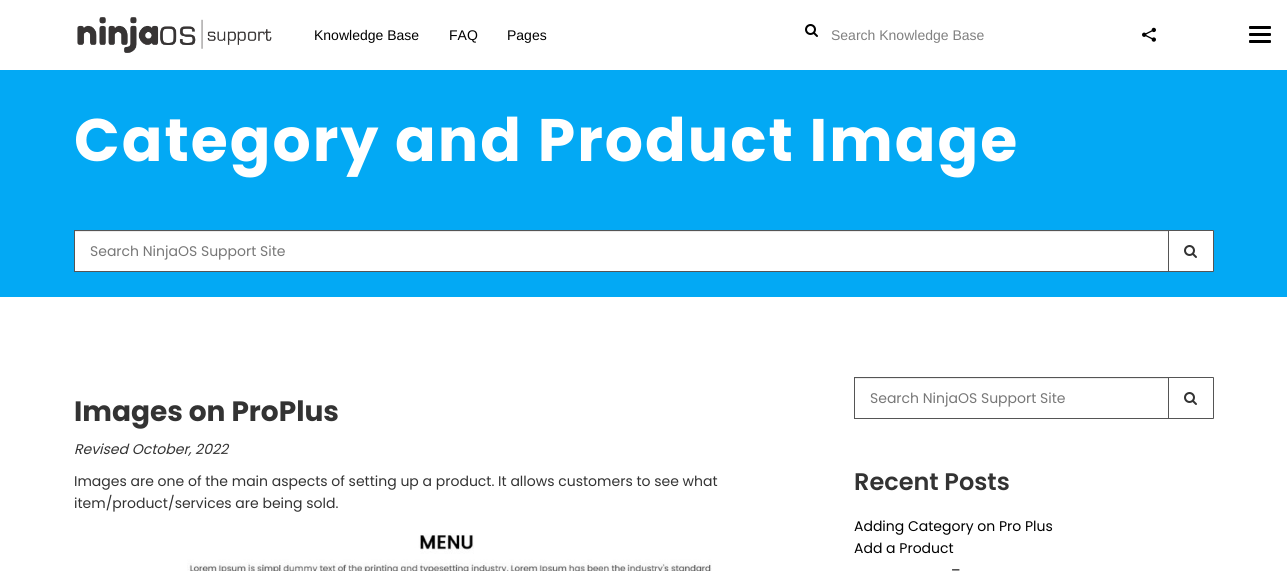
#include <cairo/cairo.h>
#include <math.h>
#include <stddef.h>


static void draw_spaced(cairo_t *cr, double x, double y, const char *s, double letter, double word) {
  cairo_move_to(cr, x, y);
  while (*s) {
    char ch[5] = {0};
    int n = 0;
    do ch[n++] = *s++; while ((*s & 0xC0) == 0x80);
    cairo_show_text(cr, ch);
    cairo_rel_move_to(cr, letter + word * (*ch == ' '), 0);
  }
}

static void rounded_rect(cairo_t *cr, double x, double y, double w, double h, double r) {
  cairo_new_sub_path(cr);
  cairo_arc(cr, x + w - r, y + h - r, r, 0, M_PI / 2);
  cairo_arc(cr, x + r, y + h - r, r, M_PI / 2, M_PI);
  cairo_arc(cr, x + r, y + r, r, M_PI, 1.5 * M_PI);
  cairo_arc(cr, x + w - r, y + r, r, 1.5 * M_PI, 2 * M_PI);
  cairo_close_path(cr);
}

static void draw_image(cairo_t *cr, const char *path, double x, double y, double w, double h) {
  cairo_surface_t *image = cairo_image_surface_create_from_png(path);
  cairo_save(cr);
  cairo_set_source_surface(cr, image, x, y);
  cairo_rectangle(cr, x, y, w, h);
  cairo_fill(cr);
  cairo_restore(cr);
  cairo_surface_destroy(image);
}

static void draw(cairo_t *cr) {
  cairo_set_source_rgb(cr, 1, 1, 1);
  cairo_paint(cr);
  draw_image(cr, "images/1.png", 77, 17, 195, 36);
  draw_image(cr, "images/2.png", 805, 24, 13, 13);
  draw_image(cr, "images/3.png", 1142, 27, 14, 15);
  cairo_set_source_rgb(cr, 0, 0, 0);
  rounded_rect(cr, 1249, 26, 22, 3, 1);
  cairo_fill(cr);
  rounded_rect(cr, 1249, 33, 22, 3, 1);
  cairo_fill(cr);
  rounded_rect(cr, 1249, 40, 22, 3, 1);
  cairo_fill(cr);
  cairo_set_source_rgb(cr, 3 / 255.0, 169 / 255.0, 244 / 255.0);
  cairo_rectangle(cr, 0, 70, 1287, 227);
  cairo_fill(cr);
  cairo_set_source_rgb(cr, 1, 1, 1);
  cairo_rectangle(cr, 75, 232, 1093, 39);
  cairo_fill(cr);
  cairo_set_source_rgb(cr, 236 / 255.0, 236 / 255.0, 236 / 255.0);
  cairo_rectangle(cr, 75, 231, 1093, 1);
  cairo_fill(cr);
  cairo_set_source_rgb(cr, 1, 1, 1);
  cairo_new_path(cr);
  cairo_move_to(cr, 1168.5, 230.5);
  cairo_line_to(cr, 1213, 230.5);
  cairo_curve_to(cr, 1213.5, 230.5, 1213.5, 230.5, 1213.5, 231);
  cairo_line_to(cr, 1213.5, 271);
  cairo_curve_to(cr, 1213.5, 271.5, 1213.5, 271.5, 1213, 271.5);
  cairo_line_to(cr, 1168.5, 271.5);
  cairo_close_path(cr);
  cairo_fill_preserve(cr);
  cairo_set_source_rgb(cr, 85 / 255.0, 85 / 255.0, 85 / 255.0);
  cairo_set_line_width(cr, 1);
  cairo_stroke(cr);
  cairo_rectangle(cr, 74.5, 230.5, 1094, 41);
  cairo_stroke(cr);
  draw_image(cr, "images/4.png", 1184, 245, 13, 13);
  draw_image(cr, "images/5.png", 187, 533, 525, 38);
  cairo_set_source_rgb(cr, 236 / 255.0, 236 / 255.0, 236 / 255.0);
  cairo_rectangle(cr, 855, 378, 313, 1);
  cairo_fill(cr);
  cairo_new_path(cr);
  cairo_move_to(cr, 1168.5, 377.5);
  cairo_line_to(cr, 1213, 377.5);
  cairo_curve_to(cr, 1213.5, 377.5, 1213.5, 377.5, 1213.5, 378);
  cairo_line_to(cr, 1213.5, 418);
  cairo_curve_to(cr, 1213.5, 418.5, 1213.5, 418.5, 1213, 418.5);
  cairo_line_to(cr, 1168.5, 418.5);
  cairo_close_path(cr);
  cairo_set_source_rgb(cr, 85 / 255.0, 85 / 255.0, 85 / 255.0);
  cairo_stroke(cr);
  cairo_rectangle(cr, 854.5, 377.5, 314, 41);
  cairo_stroke(cr);
  draw_image(cr, "images/4.png", 1184, 392, 13, 13);
  cairo_select_font_face(cr, "Liberation Sans", CAIRO_FONT_SLANT_NORMAL, CAIRO_FONT_WEIGHT_NORMAL);
  cairo_set_font_size(cr, 14);
  cairo_set_source_rgb(cr, 0, 0, 0);
  cairo_move_to(cr, 314, 40);
  cairo_show_text(cr, "Knowledge Base");
  cairo_move_to(cr, 449, 40);
  cairo_show_text(cr, "FAQ");
  cairo_move_to(cr, 507, 40);
  cairo_show_text(cr, "Pages");
  cairo_set_source_rgb(cr, 128 / 255.0, 128 / 255.0, 128 / 255.0);
  cairo_move_to(cr, 831, 40);
  cairo_show_text(cr, "Search Knowledge Base");
  cairo_select_font_face(cr, "Poppins", CAIRO_FONT_SLANT_NORMAL, CAIRO_FONT_WEIGHT_BOLD);
  cairo_set_font_size(cr, 60);
  cairo_set_source_rgb(cr, 1, 1, 1);
  draw_spaced(cr, 74, 161, "Category and Product Image", 2, 0);
  cairo_select_font_face(cr, "Poppins", CAIRO_FONT_SLANT_NORMAL, CAIRO_FONT_WEIGHT_NORMAL);
  cairo_set_font_size(cr, 14);
  cairo_set_source_rgb(cr, 119 / 255.0, 119 / 255.0, 119 / 255.0);
  cairo_move_to(cr, 90, 256);
  cairo_show_text(cr, "Search NinjaOS Support Site");
  cairo_select_font_face(cr, "Poppins", CAIRO_FONT_SLANT_NORMAL, CAIRO_FONT_WEIGHT_BOLD);
  cairo_set_font_size(cr, 28);
  cairo_set_source_rgb(cr, 51 / 255.0, 51 / 255.0, 51 / 255.0);
  cairo_move_to(cr, 74, 421);
  cairo_show_text(cr, "Images on ProPlus");
  cairo_select_font_face(cr, "Poppins", CAIRO_FONT_SLANT_ITALIC, CAIRO_FONT_WEIGHT_NORMAL);
  cairo_set_font_size(cr, 14);
  cairo_move_to(cr, 74, 454);
  cairo_show_text(cr, "Revised October, 2022");
  cairo_select_font_face(cr, "Poppins", CAIRO_FONT_SLANT_NORMAL, CAIRO_FONT_WEIGHT_NORMAL);
  cairo_move_to(cr, 74, 486);
  cairo_show_text(cr, "Images are one of the main aspects of setting up a product. It allows customers to see what");
  cairo_move_to(cr, 74, 508);
  cairo_show_text(cr, "item/product/services are being sold.");
  cairo_set_source_rgb(cr, 119 / 255.0, 119 / 255.0, 119 / 255.0);
  cairo_move_to(cr, 870, 403);
  cairo_show_text(cr, "Search NinjaOS Support Site");
  cairo_select_font_face(cr, "Poppins SemiBold", CAIRO_FONT_SLANT_NORMAL, CAIRO_FONT_WEIGHT_NORMAL);
  cairo_set_font_size(cr, 24);
  cairo_set_source_rgb(cr, 51 / 255.0, 51 / 255.0, 51 / 255.0);
  cairo_move_to(cr, 854, 490);
  cairo_show_text(cr, "Recent Posts");
  cairo_select_font_face(cr, "Poppins", CAIRO_FONT_SLANT_NORMAL, CAIRO_FONT_WEIGHT_NORMAL);
  cairo_set_font_size(cr, 14);
  cairo_set_source_rgb(cr, 0, 0, 0);
  cairo_move_to(cr, 854, 531);
  cairo_show_text(cr, "Adding Category on Pro Plus");
  cairo_move_to(cr, 854, 553);
  cairo_show_text(cr, "Add a Product");
  cairo_move_to(cr, 951, 575);
  cairo_show_text(cr, "–");
}

int main(void) {
  cairo_surface_t *surface = cairo_image_surface_create(CAIRO_FORMAT_RGB24, 1287, 571);
  cairo_t *cr = cairo_create(surface);
  cairo_font_options_t *options = cairo_font_options_create();
  cairo_font_options_set_hint_metrics(options, CAIRO_HINT_METRICS_OFF);
  cairo_font_options_set_hint_style(options, CAIRO_HINT_STYLE_NONE);
  cairo_set_font_options(cr, options);
  cairo_set_miter_limit(cr, 4);
  draw(cr);
  cairo_surface_write_to_png(surface, "out.png");
  cairo_font_options_destroy(options);
  cairo_destroy(cr);
  cairo_surface_destroy(surface);
  return 0;
}
